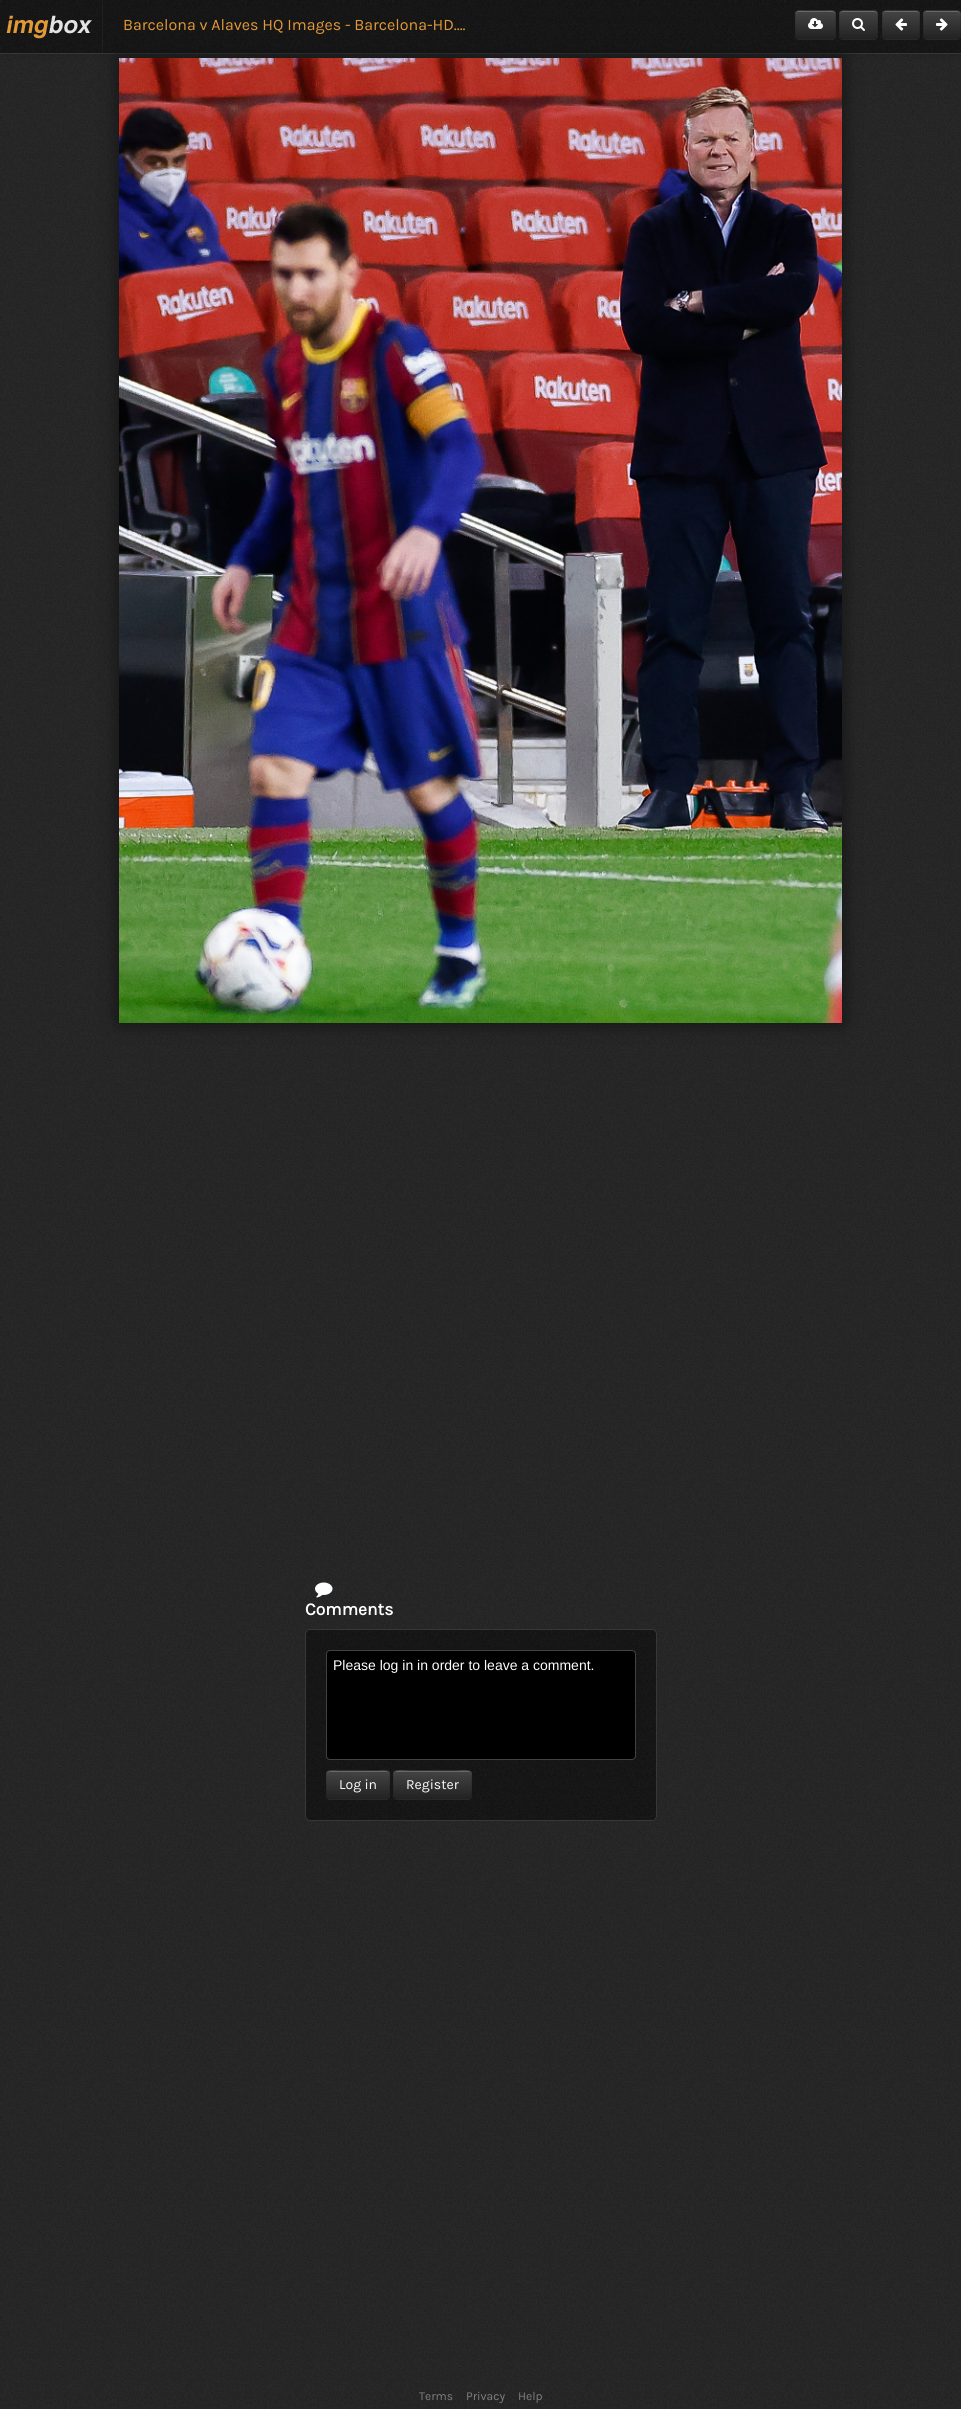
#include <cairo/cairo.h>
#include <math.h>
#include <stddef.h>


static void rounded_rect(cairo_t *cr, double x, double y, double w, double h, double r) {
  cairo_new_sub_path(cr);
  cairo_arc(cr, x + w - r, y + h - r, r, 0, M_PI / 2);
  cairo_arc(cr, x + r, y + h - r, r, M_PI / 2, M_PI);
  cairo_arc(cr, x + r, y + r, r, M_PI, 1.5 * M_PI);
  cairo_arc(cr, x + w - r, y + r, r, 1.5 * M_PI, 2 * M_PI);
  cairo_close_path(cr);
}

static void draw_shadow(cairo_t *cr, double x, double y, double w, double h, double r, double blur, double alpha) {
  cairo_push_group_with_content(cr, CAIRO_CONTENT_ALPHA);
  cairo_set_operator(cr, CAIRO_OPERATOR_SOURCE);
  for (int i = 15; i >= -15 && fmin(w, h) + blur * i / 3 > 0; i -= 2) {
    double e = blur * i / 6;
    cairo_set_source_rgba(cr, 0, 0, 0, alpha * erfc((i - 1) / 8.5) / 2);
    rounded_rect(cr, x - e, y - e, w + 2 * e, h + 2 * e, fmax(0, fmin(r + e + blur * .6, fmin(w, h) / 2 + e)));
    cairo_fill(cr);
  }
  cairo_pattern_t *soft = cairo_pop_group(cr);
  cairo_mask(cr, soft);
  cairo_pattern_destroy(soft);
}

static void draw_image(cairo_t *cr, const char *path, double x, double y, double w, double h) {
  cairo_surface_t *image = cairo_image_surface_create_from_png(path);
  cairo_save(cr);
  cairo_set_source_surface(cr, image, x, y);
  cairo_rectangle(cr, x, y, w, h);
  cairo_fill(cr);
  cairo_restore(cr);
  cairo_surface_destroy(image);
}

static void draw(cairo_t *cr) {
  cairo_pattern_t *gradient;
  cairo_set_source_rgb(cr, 1, 1, 1);
  cairo_paint(cr);
  draw_image(cr, "images/1.png", 0, 54, 961, 2355);
  cairo_set_source_rgb(cr, 0, 0, 0);
  draw_shadow(cr, 0, 1, 961, 54, 0, 5, 0.1);
  draw_image(cr, "images/2.png", 0, 0, 961, 53);
  cairo_set_source_rgb(cr, 55 / 255.0, 55 / 255.0, 55 / 255.0);
  cairo_rectangle(cr, 0, 53, 961, 1);
  cairo_fill(cr);
  draw_image(cr, "images/3.png", 6, 15, 86, 24);
  cairo_set_source_rgb(cr, 32 / 255.0, 32 / 255.0, 32 / 255.0);
  cairo_rectangle(cr, 102, 0, 1, 53);
  cairo_fill(cr);
  cairo_set_source_rgb(cr, 54 / 255.0, 54 / 255.0, 54 / 255.0);
  rounded_rect(cr, 795, 10, 41, 30, 4);
  cairo_fill(cr);
  cairo_save(cr);
  rounded_rect(cr, 795, 10, 41, 30, 4);
  cairo_clip(cr);
  gradient = cairo_pattern_create_linear(816, 11, 816, 39);
  cairo_pattern_add_color_stop_rgba(gradient, 0, 68 / 255.0, 68 / 255.0, 68 / 255.0, 1);
  cairo_pattern_add_color_stop_rgba(gradient, 1, 34 / 255.0, 34 / 255.0, 34 / 255.0, 1);
  cairo_set_source(cr, gradient);
  cairo_pattern_destroy(gradient);
  cairo_rectangle(cr, 795, 11, 41, 28);
  cairo_fill(cr);
  cairo_restore(cr);
  cairo_set_source_rgb(cr, 105 / 255.0, 105 / 255.0, 105 / 255.0);
  cairo_new_path(cr);
  cairo_move_to(cr, 799, 12);
  cairo_line_to(cr, 832, 12);
  cairo_curve_to(cr, 834, 12, 835, 13, 835, 15);
  cairo_curve_to(cr, 835, 9.5, 831, 11, 826.5, 11);
  cairo_line_to(cr, 804.5, 11);
  cairo_curve_to(cr, 800, 11, 796, 9.5, 796, 15);
  cairo_curve_to(cr, 796, 13, 797, 12, 799, 12);
  cairo_close_path(cr);
  cairo_fill(cr);
  cairo_new_path(cr);
  cairo_move_to(cr, 834.5, 38.5);
  cairo_curve_to(cr, 834, 39, 833, 39.5, 832, 39.5);
  cairo_line_to(cr, 799, 39.5);
  cairo_curve_to(cr, 798, 39.5, 797, 39, 796.5, 38.5);
  cairo_set_source_rgba(cr, 0, 0, 0, 0.25);
  cairo_set_line_width(cr, 1);
  cairo_stroke(cr);
  cairo_new_path(cr);
  cairo_move_to(cr, 796.5, 38.5);
  cairo_curve_to(cr, 794.5, 36.5, 795.5, 28, 795.5, 25);
  cairo_curve_to(cr, 795.5, 6, 794, 10.5, 815.5, 10.5);
  cairo_curve_to(cr, 837, 10.5, 835.5, 6, 835.5, 25);
  cairo_curve_to(cr, 835.5, 28, 836.5, 36.5, 834.5, 38.5);
  cairo_set_source_rgba(cr, 0, 0, 0, 0.1);
  cairo_stroke(cr);
  draw_image(cr, "images/4.png", 808, 18, 15, 11);
  cairo_set_source_rgb(cr, 54 / 255.0, 54 / 255.0, 54 / 255.0);
  rounded_rect(cr, 839, 10, 39, 30, 4);
  cairo_fill(cr);
  cairo_save(cr);
  rounded_rect(cr, 839, 10, 39, 30, 4);
  cairo_clip(cr);
  gradient = cairo_pattern_create_linear(859, 11, 859, 39);
  cairo_pattern_add_color_stop_rgba(gradient, 0, 68 / 255.0, 68 / 255.0, 68 / 255.0, 1);
  cairo_pattern_add_color_stop_rgba(gradient, 1, 34 / 255.0, 34 / 255.0, 34 / 255.0, 1);
  cairo_set_source(cr, gradient);
  cairo_pattern_destroy(gradient);
  cairo_rectangle(cr, 839, 11, 39, 28);
  cairo_fill(cr);
  cairo_restore(cr);
  cairo_set_source_rgb(cr, 105 / 255.0, 105 / 255.0, 105 / 255.0);
  cairo_new_path(cr);
  cairo_move_to(cr, 843, 12);
  cairo_line_to(cr, 874, 12);
  cairo_curve_to(cr, 876, 12, 877, 13, 877, 15);
  cairo_curve_to(cr, 877, 10, 873, 11, 869, 11);
  cairo_line_to(cr, 848, 11);
  cairo_curve_to(cr, 844, 11, 840, 10, 840, 15);
  cairo_curve_to(cr, 840, 13, 841, 12, 843, 12);
  cairo_close_path(cr);
  cairo_fill(cr);
  cairo_new_path(cr);
  cairo_move_to(cr, 876.5, 38.5);
  cairo_curve_to(cr, 876, 39, 875, 39.5, 874, 39.5);
  cairo_line_to(cr, 843, 39.5);
  cairo_curve_to(cr, 842, 39.5, 841, 39, 840.5, 38.5);
  cairo_set_source_rgba(cr, 0, 0, 0, 0.25);
  cairo_stroke(cr);
  cairo_new_path(cr);
  cairo_move_to(cr, 840.5, 38.5);
  cairo_curve_to(cr, 840, 38, 839.5, 37, 839.5, 36);
  cairo_line_to(cr, 839.5, 14);
  cairo_curve_to(cr, 839.5, 13, 840, 12, 840.5, 11.5);
  cairo_curve_to(cr, 841, 11, 842, 10.5, 843, 10.5);
  cairo_line_to(cr, 874, 10.5);
  cairo_curve_to(cr, 875, 10.5, 876, 11, 876.5, 11.5);
  cairo_curve_to(cr, 877, 12, 877.5, 13, 877.5, 14);
  cairo_line_to(cr, 877.5, 36);
  cairo_curve_to(cr, 877.5, 37, 877, 38, 876.5, 38.5);
  cairo_set_source_rgba(cr, 0, 0, 0, 0.1);
  cairo_stroke(cr);
  draw_image(cr, "images/5.png", 852, 18, 13, 13);
  cairo_set_source_rgb(cr, 54 / 255.0, 54 / 255.0, 54 / 255.0);
  rounded_rect(cr, 882, 10, 38, 30, 4);
  cairo_fill(cr);
  cairo_save(cr);
  rounded_rect(cr, 882, 10, 38, 30, 4);
  cairo_clip(cr);
  gradient = cairo_pattern_create_linear(901, 11, 901, 39);
  cairo_pattern_add_color_stop_rgba(gradient, 0, 68 / 255.0, 68 / 255.0, 68 / 255.0, 1);
  cairo_pattern_add_color_stop_rgba(gradient, 1, 34 / 255.0, 34 / 255.0, 34 / 255.0, 1);
  cairo_set_source(cr, gradient);
  cairo_pattern_destroy(gradient);
  cairo_rectangle(cr, 882, 11, 38, 28);
  cairo_fill(cr);
  cairo_restore(cr);
  cairo_set_source_rgb(cr, 105 / 255.0, 105 / 255.0, 105 / 255.0);
  cairo_new_path(cr);
  cairo_move_to(cr, 886, 12);
  cairo_line_to(cr, 916, 12);
  cairo_curve_to(cr, 918, 12, 919, 13, 919, 15);
  cairo_curve_to(cr, 919, 10, 915, 11, 911, 11);
  cairo_line_to(cr, 891, 11);
  cairo_curve_to(cr, 887, 11, 883, 10, 883, 15);
  cairo_curve_to(cr, 883, 13, 884, 12, 886, 12);
  cairo_close_path(cr);
  cairo_fill(cr);
  cairo_new_path(cr);
  cairo_move_to(cr, 918.5, 38.5);
  cairo_curve_to(cr, 918, 39, 917, 39.5, 916, 39.5);
  cairo_line_to(cr, 886, 39.5);
  cairo_curve_to(cr, 885, 39.5, 884, 39, 883.5, 38.5);
  cairo_set_source_rgba(cr, 0, 0, 0, 0.25);
  cairo_stroke(cr);
  cairo_new_path(cr);
  cairo_move_to(cr, 883.5, 38.5);
  cairo_curve_to(cr, 883, 38, 882.5, 37, 882.5, 36);
  cairo_line_to(cr, 882.5, 14);
  cairo_curve_to(cr, 882.5, 13, 883, 12, 883.5, 11.5);
  cairo_curve_to(cr, 884, 11, 885, 10.5, 886, 10.5);
  cairo_line_to(cr, 916, 10.5);
  cairo_curve_to(cr, 917, 10.5, 918, 11, 918.5, 11.5);
  cairo_curve_to(cr, 919, 12, 919.5, 13, 919.5, 14);
  cairo_line_to(cr, 919.5, 36);
  cairo_curve_to(cr, 919.5, 37, 919, 38, 918.5, 38.5);
  cairo_set_source_rgba(cr, 0, 0, 0, 0.1);
  cairo_stroke(cr);
  draw_image(cr, "images/6.png", 895, 18, 12, 13);
  cairo_set_source_rgb(cr, 54 / 255.0, 54 / 255.0, 54 / 255.0);
  rounded_rect(cr, 923, 10, 38, 30, 4);
  cairo_fill(cr);
  cairo_save(cr);
  rounded_rect(cr, 923, 10, 38, 30, 4);
  cairo_clip(cr);
  gradient = cairo_pattern_create_linear(942, 11, 942, 39);
  cairo_pattern_add_color_stop_rgba(gradient, 0, 68 / 255.0, 68 / 255.0, 68 / 255.0, 1);
  cairo_pattern_add_color_stop_rgba(gradient, 1, 34 / 255.0, 34 / 255.0, 34 / 255.0, 1);
  cairo_set_source(cr, gradient);
  cairo_pattern_destroy(gradient);
  cairo_rectangle(cr, 923, 11, 38, 28);
  cairo_fill(cr);
  cairo_restore(cr);
  cairo_set_source_rgb(cr, 105 / 255.0, 105 / 255.0, 105 / 255.0);
  cairo_new_path(cr);
  cairo_move_to(cr, 927, 12);
  cairo_line_to(cr, 957, 12);
  cairo_curve_to(cr, 959, 12, 960, 13, 960, 15);
  cairo_curve_to(cr, 960, 10, 956, 11, 952, 11);
  cairo_line_to(cr, 932, 11);
  cairo_curve_to(cr, 928, 11, 924, 10, 924, 15);
  cairo_curve_to(cr, 924, 13, 925, 12, 927, 12);
  cairo_close_path(cr);
  cairo_fill(cr);
  cairo_new_path(cr);
  cairo_move_to(cr, 959.5, 38.5);
  cairo_curve_to(cr, 959, 39, 958, 39.5, 957, 39.5);
  cairo_line_to(cr, 927, 39.5);
  cairo_curve_to(cr, 926, 39.5, 925, 39, 924.5, 38.5);
  cairo_set_source_rgba(cr, 0, 0, 0, 0.25);
  cairo_stroke(cr);
  cairo_new_path(cr);
  cairo_move_to(cr, 924.5, 38.5);
  cairo_curve_to(cr, 924, 38, 923.5, 37, 923.5, 36);
  cairo_line_to(cr, 923.5, 14);
  cairo_curve_to(cr, 923.5, 13, 924, 12, 924.5, 11.5);
  cairo_curve_to(cr, 925, 11, 926, 10.5, 927, 10.5);
  cairo_line_to(cr, 957, 10.5);
  cairo_curve_to(cr, 958, 10.5, 959, 11, 959.5, 11.5);
  cairo_curve_to(cr, 960, 12, 960.5, 13, 960.5, 14);
  cairo_line_to(cr, 960.5, 36);
  cairo_curve_to(cr, 960.5, 37, 960, 38, 959.5, 38.5);
  cairo_set_source_rgba(cr, 0, 0, 0, 0.1);
  cairo_stroke(cr);
  draw_image(cr, "images/7.png", 936, 18, 12, 13);
  cairo_set_source_rgb(cr, 17 / 255.0, 17 / 255.0, 17 / 255.0);
  draw_shadow(cr, 119, 58, 723, 965, 0, 10, 1);
  draw_image(cr, "images/8.png", 119, 58, 723, 965);
  draw_image(cr, "images/9.png", 315, 1582, 18, 16);
  draw_image(cr, "images/10.png", 305, 1629, 352, 192);
  rounded_rect(cr, 305.5, 1629.5, 351, 191, 4.5);
  cairo_set_source_rgb(cr, 55 / 255.0, 55 / 255.0, 55 / 255.0);
  cairo_stroke(cr);
  cairo_set_source_rgb(cr, 0, 0, 0);
  rounded_rect(cr, 326.5, 1650.5, 309, 109, 3.5);
  cairo_fill_preserve(cr);
  cairo_set_source_rgb(cr, 66 / 255.0, 66 / 255.0, 66 / 255.0);
  cairo_stroke(cr);
  cairo_set_source_rgb(cr, 54 / 255.0, 54 / 255.0, 54 / 255.0);
  rounded_rect(cr, 326, 1770, 64, 30, 4);
  cairo_fill(cr);
  cairo_save(cr);
  rounded_rect(cr, 326, 1770, 64, 30, 4);
  cairo_clip(cr);
  gradient = cairo_pattern_create_linear(358, 1771, 358, 1799);
  cairo_pattern_add_color_stop_rgba(gradient, 0, 68 / 255.0, 68 / 255.0, 68 / 255.0, 1);
  cairo_pattern_add_color_stop_rgba(gradient, 1, 34 / 255.0, 34 / 255.0, 34 / 255.0, 1);
  cairo_set_source(cr, gradient);
  cairo_pattern_destroy(gradient);
  cairo_rectangle(cr, 326, 1771, 64, 28);
  cairo_fill(cr);
  cairo_restore(cr);
  cairo_set_source_rgb(cr, 105 / 255.0, 105 / 255.0, 105 / 255.0);
  cairo_new_path(cr);
  cairo_move_to(cr, 330, 1772);
  cairo_line_to(cr, 386, 1772);
  cairo_curve_to(cr, 388, 1772, 389, 1773, 389, 1775);
  cairo_curve_to(cr, 389, 1769, 381, 1771, 377, 1771);
  cairo_line_to(cr, 339, 1771);
  cairo_curve_to(cr, 335, 1771, 327, 1769, 327, 1775);
  cairo_curve_to(cr, 327, 1773, 328, 1772, 330, 1772);
  cairo_close_path(cr);
  cairo_fill(cr);
  cairo_new_path(cr);
  cairo_move_to(cr, 388.5, 1798.5);
  cairo_line_to(cr, 386.5, 1799.5);
  cairo_line_to(cr, 329.5, 1799.5);
  cairo_line_to(cr, 327.5, 1798.5);
  cairo_set_source_rgba(cr, 0, 0, 0, 0.25);
  cairo_stroke(cr);
  cairo_new_path(cr);
  cairo_move_to(cr, 327.5, 1798.5);
  cairo_curve_to(cr, 325.5, 1796.5, 326.5, 1788, 326.5, 1785);
  cairo_curve_to(cr, 326.5, 1769.5, 324, 1770.5, 339.5, 1770.5);
  cairo_line_to(cr, 376.5, 1770.5);
  cairo_curve_to(cr, 392, 1770.5, 389.5, 1769.5, 389.5, 1785);
  cairo_curve_to(cr, 389.5, 1788, 390.5, 1796.5, 388.5, 1798.5);
  cairo_set_source_rgba(cr, 0, 0, 0, 0.1);
  cairo_stroke(cr);
  cairo_set_source_rgb(cr, 54 / 255.0, 54 / 255.0, 54 / 255.0);
  rounded_rect(cr, 393, 1770, 79, 30, 4);
  cairo_fill(cr);
  cairo_save(cr);
  rounded_rect(cr, 393, 1770, 79, 30, 4);
  cairo_clip(cr);
  gradient = cairo_pattern_create_linear(433, 1771, 433, 1799);
  cairo_pattern_add_color_stop_rgba(gradient, 0, 68 / 255.0, 68 / 255.0, 68 / 255.0, 1);
  cairo_pattern_add_color_stop_rgba(gradient, 1, 34 / 255.0, 34 / 255.0, 34 / 255.0, 1);
  cairo_set_source(cr, gradient);
  cairo_pattern_destroy(gradient);
  cairo_rectangle(cr, 393, 1771, 79, 28);
  cairo_fill(cr);
  cairo_restore(cr);
  cairo_set_source_rgba(cr, 1, 1, 1, 0.2);
  cairo_new_path(cr);
  cairo_move_to(cr, 397, 1772);
  cairo_line_to(cr, 468, 1772);
  cairo_curve_to(cr, 470, 1772, 471, 1773, 471, 1775);
  cairo_curve_to(cr, 471, 1768, 460, 1771, 456, 1771);
  cairo_line_to(cr, 409, 1771);
  cairo_curve_to(cr, 405, 1771, 394, 1768, 394, 1775);
  cairo_curve_to(cr, 394, 1773, 395, 1772, 397, 1772);
  cairo_close_path(cr);
  cairo_fill(cr);
  cairo_new_path(cr);
  cairo_move_to(cr, 470.5, 1798.5);
  cairo_curve_to(cr, 470, 1799, 469, 1799.5, 468, 1799.5);
  cairo_line_to(cr, 397, 1799.5);
  cairo_curve_to(cr, 396, 1799.5, 395, 1799, 394.5, 1798.5);
  cairo_set_source_rgba(cr, 0, 0, 0, 0.25);
  cairo_stroke(cr);
  cairo_new_path(cr);
  cairo_move_to(cr, 394.5, 1798.5);
  cairo_curve_to(cr, 392.5, 1796.5, 393.5, 1788, 393.5, 1785);
  cairo_curve_to(cr, 393.5, 1768, 391, 1770.5, 409, 1770.5);
  cairo_line_to(cr, 456, 1770.5);
  cairo_curve_to(cr, 474, 1770.5, 471.5, 1768, 471.5, 1785);
  cairo_curve_to(cr, 471.5, 1788, 472.5, 1796.5, 470.5, 1798.5);
  cairo_set_source_rgba(cr, 0, 0, 0, 0.1);
  cairo_stroke(cr);
  cairo_select_font_face(cr, "Karla", CAIRO_FONT_SLANT_NORMAL, CAIRO_FONT_WEIGHT_NORMAL);
  cairo_set_font_size(cr, 16);
  cairo_set_source_rgb(cr, 227 / 255.0, 153 / 255.0, 56 / 255.0);
  cairo_move_to(cr, 123, 30);
  cairo_show_text(cr, "Barcelona v Alaves HQ Images - Barcelona-HD.…");
  cairo_select_font_face(cr, "Karla", CAIRO_FONT_SLANT_NORMAL, CAIRO_FONT_WEIGHT_BOLD);
  cairo_set_font_size(cr, 17.5);
  cairo_set_source_rgb(cr, 253 / 255.0, 254 / 255.0, 1);
  cairo_move_to(cr, 305, 1615);
  cairo_show_text(cr, "Comments");
  cairo_select_font_face(cr, "Liberation Sans", CAIRO_FONT_SLANT_NORMAL, CAIRO_FONT_WEIGHT_NORMAL);
  cairo_set_font_size(cr, 14);
  cairo_move_to(cr, 333, 1670);
  cairo_show_text(cr, "Please log in in order to leave a comment.");
  cairo_select_font_face(cr, "Karla", CAIRO_FONT_SLANT_NORMAL, CAIRO_FONT_WEIGHT_NORMAL);
  cairo_move_to(cr, 339, 1789);
  cairo_show_text(cr, "Log in");
  cairo_move_to(cr, 406, 1789);
  cairo_show_text(cr, "Register");
  cairo_set_font_size(cr, 12);
  cairo_set_source_rgb(cr, 128 / 255.0, 128 / 255.0, 128 / 255.0);
  cairo_move_to(cr, 419, 2400);
  cairo_show_text(cr, "Terms");
  cairo_move_to(cr, 466, 2400);
  cairo_show_text(cr, "Privacy");
  cairo_move_to(cr, 518, 2400);
  cairo_show_text(cr, "Help");
}

int main(void) {
  cairo_surface_t *surface = cairo_image_surface_create(CAIRO_FORMAT_RGB24, 961, 2409);
  cairo_t *cr = cairo_create(surface);
  cairo_font_options_t *options = cairo_font_options_create();
  cairo_font_options_set_hint_metrics(options, CAIRO_HINT_METRICS_OFF);
  cairo_font_options_set_hint_style(options, CAIRO_HINT_STYLE_NONE);
  cairo_set_font_options(cr, options);
  cairo_set_miter_limit(cr, 4);
  draw(cr);
  cairo_surface_write_to_png(surface, "out.png");
  cairo_font_options_destroy(options);
  cairo_destroy(cr);
  cairo_surface_destroy(surface);
  return 0;
}
